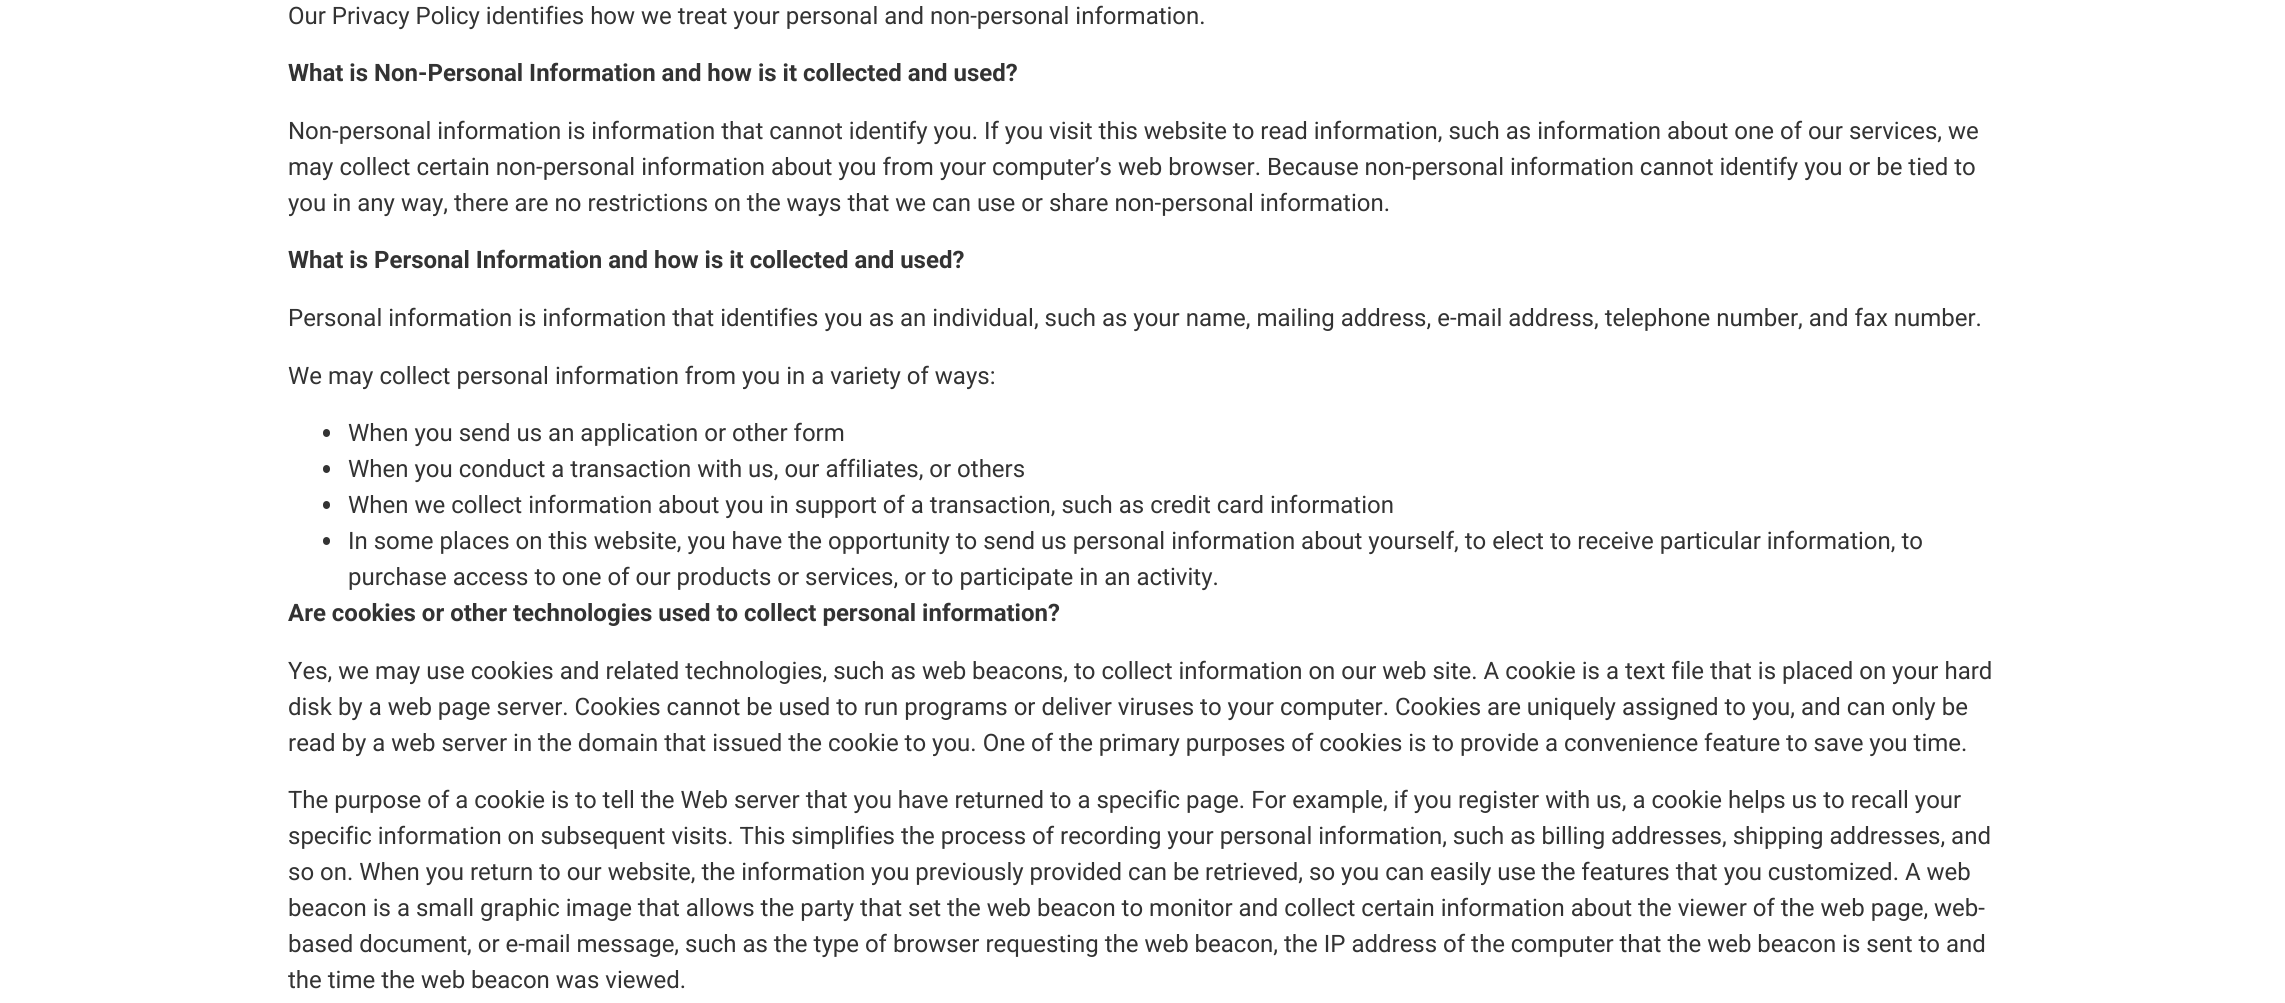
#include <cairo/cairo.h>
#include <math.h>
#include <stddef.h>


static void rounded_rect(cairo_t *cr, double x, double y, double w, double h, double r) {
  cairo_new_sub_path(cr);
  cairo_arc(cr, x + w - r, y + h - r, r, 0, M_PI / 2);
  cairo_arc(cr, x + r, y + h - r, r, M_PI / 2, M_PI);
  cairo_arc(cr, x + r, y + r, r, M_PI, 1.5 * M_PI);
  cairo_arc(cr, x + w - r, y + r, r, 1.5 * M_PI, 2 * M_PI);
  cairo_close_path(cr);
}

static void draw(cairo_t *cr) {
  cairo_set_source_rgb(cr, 1, 1, 1);
  cairo_paint(cr);
  cairo_set_source_rgb(cr, 51 / 255.0, 51 / 255.0, 51 / 255.0);
  rounded_rect(cr, 323, 429, 7, 8, 3.5);
  cairo_fill(cr);
  rounded_rect(cr, 323, 465, 7, 8, 3.5);
  cairo_fill(cr);
  rounded_rect(cr, 323, 501, 7, 8, 3.5);
  cairo_fill(cr);
  rounded_rect(cr, 323, 537, 7, 8, 3.5);
  cairo_fill(cr);
  cairo_select_font_face(cr, "Roboto", CAIRO_FONT_SLANT_NORMAL, CAIRO_FONT_WEIGHT_NORMAL);
  cairo_set_font_size(cr, 24);
  cairo_move_to(cr, 288, 24);
  cairo_show_text(cr, "Our Privacy Policy identifies how we treat your personal and non-personal information.");
  cairo_select_font_face(cr, "Roboto", CAIRO_FONT_SLANT_NORMAL, CAIRO_FONT_WEIGHT_BOLD);
  cairo_move_to(cr, 288, 81);
  cairo_show_text(cr, "What is Non-Personal Information and how is it collected and used?");
  cairo_select_font_face(cr, "Roboto", CAIRO_FONT_SLANT_NORMAL, CAIRO_FONT_WEIGHT_NORMAL);
  cairo_move_to(cr, 288, 139);
  cairo_show_text(cr, "Non-personal information is information that cannot identify you. If you visit this website to read information, such as information about one of our services, we");
  cairo_move_to(cr, 288, 175);
  cairo_show_text(cr, "may collect certain non-personal information about you from your computer’s web browser. Because non-personal information cannot identify you or be tied to");
  cairo_move_to(cr, 288, 211);
  cairo_show_text(cr, "you in any way, there are no restrictions on the ways that we can use or share non-personal information.");
  cairo_select_font_face(cr, "Roboto", CAIRO_FONT_SLANT_NORMAL, CAIRO_FONT_WEIGHT_BOLD);
  cairo_move_to(cr, 288, 268);
  cairo_show_text(cr, "What is Personal Information and how is it collected and used?");
  cairo_select_font_face(cr, "Roboto", CAIRO_FONT_SLANT_NORMAL, CAIRO_FONT_WEIGHT_NORMAL);
  cairo_move_to(cr, 288, 326);
  cairo_show_text(cr, "Personal information is information that identifies you as an individual, such as your name, mailing address, e-mail address, telephone number, and fax number.");
  cairo_move_to(cr, 288, 384);
  cairo_show_text(cr, "We may collect personal information from you in a variety of ways:");
  cairo_move_to(cr, 348, 441);
  cairo_show_text(cr, "When you send us an application or other form");
  cairo_move_to(cr, 348, 477);
  cairo_show_text(cr, "When you conduct a transaction with us, our affiliates, or others");
  cairo_move_to(cr, 348, 513);
  cairo_show_text(cr, "When we collect information about you in support of a transaction, such as credit card information");
  cairo_move_to(cr, 348, 549);
  cairo_show_text(cr, "In some places on this website, you have the opportunity to send us personal information about yourself, to elect to receive particular information, to");
  cairo_move_to(cr, 348, 585);
  cairo_show_text(cr, "purchase access to one of our products or services, or to participate in an activity.");
  cairo_select_font_face(cr, "Roboto", CAIRO_FONT_SLANT_NORMAL, CAIRO_FONT_WEIGHT_BOLD);
  cairo_move_to(cr, 288, 621);
  cairo_show_text(cr, "Are cookies or other technologies used to collect personal information?");
  cairo_select_font_face(cr, "Roboto", CAIRO_FONT_SLANT_NORMAL, CAIRO_FONT_WEIGHT_NORMAL);
  cairo_move_to(cr, 288, 679);
  cairo_show_text(cr, "Yes, we may use cookies and related technologies, such as web beacons, to collect information on our web site. A cookie is a text file that is placed on your hard");
  cairo_move_to(cr, 288, 715);
  cairo_show_text(cr, "disk by a web page server. Cookies cannot be used to run programs or deliver viruses to your computer. Cookies are uniquely assigned to you, and can only be");
  cairo_move_to(cr, 288, 751);
  cairo_show_text(cr, "read by a web server in the domain that issued the cookie to you. One of the primary purposes of cookies is to provide a convenience feature to save you time.");
  cairo_move_to(cr, 288, 808);
  cairo_show_text(cr, "The purpose of a cookie is to tell the Web server that you have returned to a specific page. For example, if you register with us, a cookie helps us to recall your");
  cairo_move_to(cr, 288, 844);
  cairo_show_text(cr, "specific information on subsequent visits. This simplifies the process of recording your personal information, such as billing addresses, shipping addresses, and");
  cairo_move_to(cr, 288, 880);
  cairo_show_text(cr, "so on. When you return to our website, the information you previously provided can be retrieved, so you can easily use the features that you customized. A web");
  cairo_move_to(cr, 288, 916);
  cairo_show_text(cr, "beacon is a small graphic image that allows the party that set the web beacon to monitor and collect certain information about the viewer of the web page, web-");
  cairo_move_to(cr, 288, 952);
  cairo_show_text(cr, "based document, or e-mail message, such as the type of browser requesting the web beacon, the IP address of the computer that the web beacon is sent to and");
  cairo_move_to(cr, 288, 988);
  cairo_show_text(cr, "the time the web beacon was viewed.");
}

int main(void) {
  cairo_surface_t *surface = cairo_image_surface_create(CAIRO_FORMAT_RGB24, 2285, 1003);
  cairo_t *cr = cairo_create(surface);
  cairo_font_options_t *options = cairo_font_options_create();
  cairo_font_options_set_hint_metrics(options, CAIRO_HINT_METRICS_OFF);
  cairo_font_options_set_hint_style(options, CAIRO_HINT_STYLE_NONE);
  cairo_set_font_options(cr, options);
  cairo_set_miter_limit(cr, 4);
  draw(cr);
  cairo_surface_write_to_png(surface, "out.png");
  cairo_font_options_destroy(options);
  cairo_destroy(cr);
  cairo_surface_destroy(surface);
  return 0;
}
